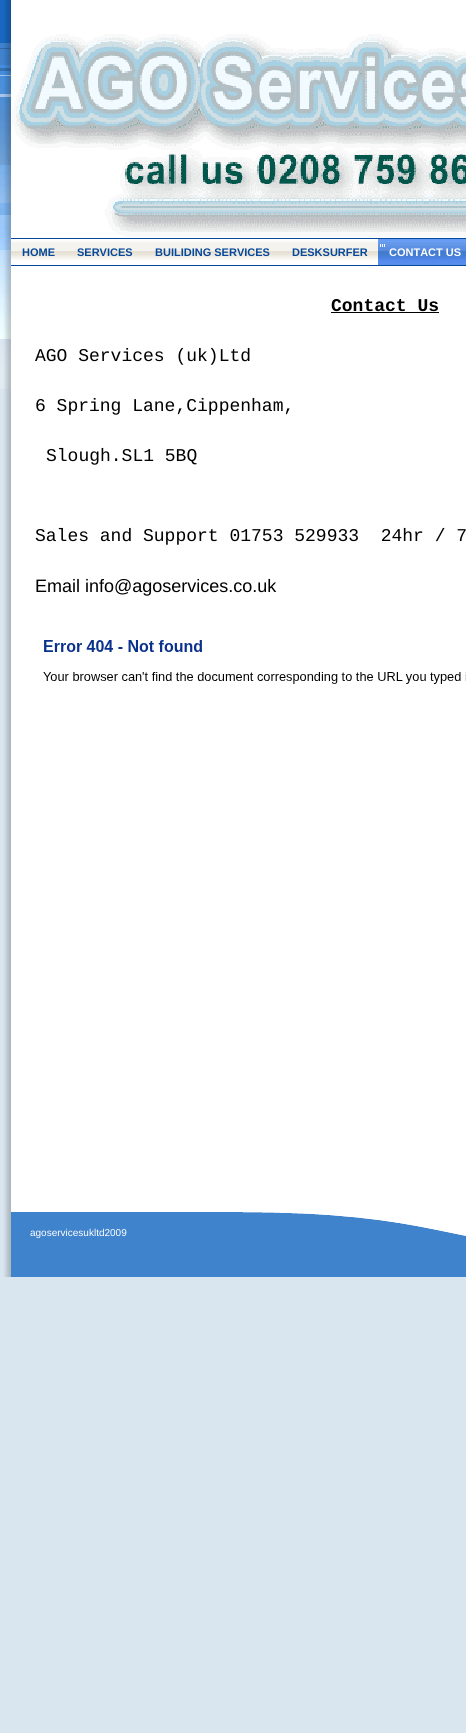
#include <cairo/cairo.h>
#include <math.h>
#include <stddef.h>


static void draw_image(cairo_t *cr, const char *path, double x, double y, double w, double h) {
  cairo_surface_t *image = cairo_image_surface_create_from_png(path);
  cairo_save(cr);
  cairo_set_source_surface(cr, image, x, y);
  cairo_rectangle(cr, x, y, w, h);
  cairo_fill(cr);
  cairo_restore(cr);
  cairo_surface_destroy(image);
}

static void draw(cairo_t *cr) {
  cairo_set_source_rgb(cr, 218 / 255.0, 230 / 255.0, 239 / 255.0);
  cairo_paint(cr);
  draw_image(cr, "images/1.png", 0, 0, 466, 1277);
  draw_image(cr, "images/2.png", 0, 0, 11, 251);
  draw_image(cr, "images/3.png", 12, 34, 454, 203);
  draw_image(cr, "images/4.png", 0, 251, 11, 138);
  draw_image(cr, "images/5.png", 11, 238, 455, 28);
  draw_image(cr, "images/6.png", 378, 239, 88, 26);
  cairo_set_source_rgb(cr, 0, 0, 0);
  cairo_rectangle(cr, 331, 312, 108, 1);
  cairo_fill(cr);
  draw_image(cr, "images/7.png", 43, 640, 423, 44);
  draw_image(cr, "images/8.png", 11, 1212, 455, 65);
  cairo_select_font_face(cr, "Liberation Sans", CAIRO_FONT_SLANT_NORMAL, CAIRO_FONT_WEIGHT_BOLD);
  cairo_set_font_size(cr, 11);
  cairo_set_source_rgb(cr, 7 / 255.0, 72 / 255.0, 153 / 255.0);
  cairo_move_to(cr, 22, 256);
  cairo_show_text(cr, "HOME");
  cairo_move_to(cr, 77, 256);
  cairo_show_text(cr, "SERVICES");
  cairo_move_to(cr, 155, 256);
  cairo_show_text(cr, "BUILIDING SERVICES");
  cairo_move_to(cr, 292, 256);
  cairo_show_text(cr, "DESKSURFER");
  cairo_set_source_rgb(cr, 1, 1, 1);
  cairo_move_to(cr, 389, 256);
  cairo_show_text(cr, "CONTACT US");
  cairo_select_font_face(cr, "Liberation Mono", CAIRO_FONT_SLANT_NORMAL, CAIRO_FONT_WEIGHT_BOLD);
  cairo_set_font_size(cr, 18);
  cairo_set_source_rgb(cr, 0, 0, 0);
  cairo_move_to(cr, 331, 311);
  cairo_show_text(cr, "Contact Us");
  cairo_select_font_face(cr, "Liberation Mono", CAIRO_FONT_SLANT_NORMAL, CAIRO_FONT_WEIGHT_NORMAL);
  cairo_move_to(cr, 35, 361);
  cairo_show_text(cr, "AGO Services (uk)Ltd");
  cairo_move_to(cr, 35, 411);
  cairo_show_text(cr, "6 Spring Lane,Cippenham,");
  cairo_move_to(cr, 46, 461);
  cairo_show_text(cr, "Slough.SL1 5BQ");
  cairo_move_to(cr, 35, 541);
  cairo_show_text(cr, "Sales and Support 01753 529933  24hr / 7");
  cairo_select_font_face(cr, "Liberation Sans", CAIRO_FONT_SLANT_NORMAL, CAIRO_FONT_WEIGHT_NORMAL);
  cairo_move_to(cr, 35, 592);
  cairo_show_text(cr, "Email info@agoservices.co.uk");
  cairo_set_font_size(cr, 10);
  cairo_set_source_rgb(cr, 1, 1, 1);
  cairo_move_to(cr, 30, 1236);
  cairo_show_text(cr, "agoservicesukltd2009");
}

int main(void) {
  cairo_surface_t *surface = cairo_image_surface_create(CAIRO_FORMAT_RGB24, 466, 1733);
  cairo_t *cr = cairo_create(surface);
  cairo_font_options_t *options = cairo_font_options_create();
  cairo_font_options_set_hint_metrics(options, CAIRO_HINT_METRICS_OFF);
  cairo_font_options_set_hint_style(options, CAIRO_HINT_STYLE_NONE);
  cairo_set_font_options(cr, options);
  cairo_set_miter_limit(cr, 4);
  draw(cr);
  cairo_surface_write_to_png(surface, "out.png");
  cairo_font_options_destroy(options);
  cairo_destroy(cr);
  cairo_surface_destroy(surface);
  return 0;
}
